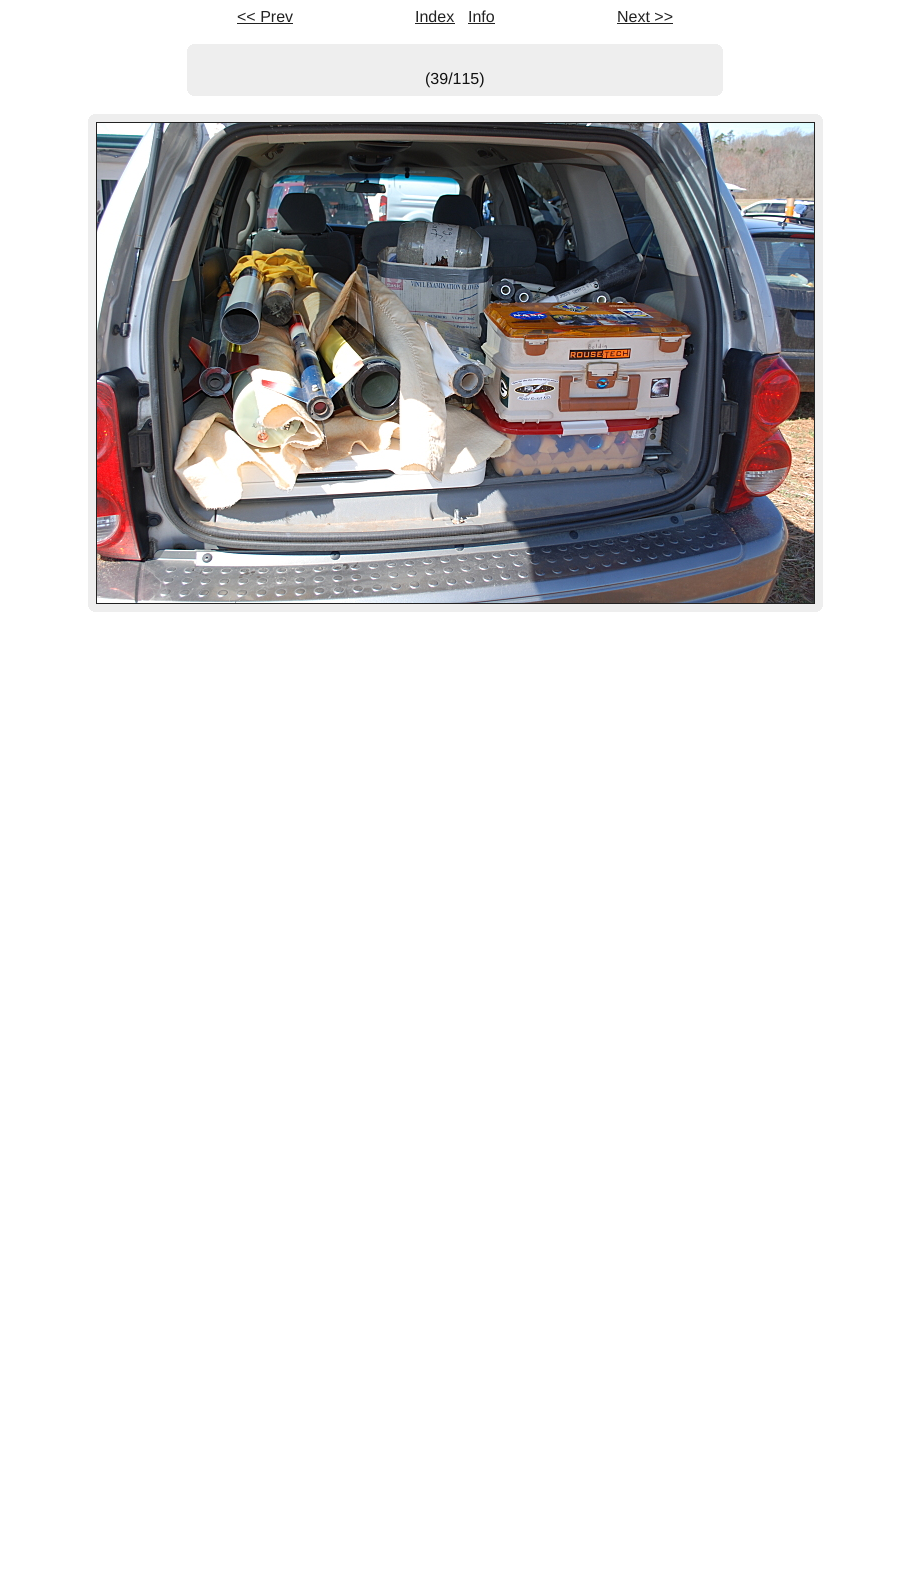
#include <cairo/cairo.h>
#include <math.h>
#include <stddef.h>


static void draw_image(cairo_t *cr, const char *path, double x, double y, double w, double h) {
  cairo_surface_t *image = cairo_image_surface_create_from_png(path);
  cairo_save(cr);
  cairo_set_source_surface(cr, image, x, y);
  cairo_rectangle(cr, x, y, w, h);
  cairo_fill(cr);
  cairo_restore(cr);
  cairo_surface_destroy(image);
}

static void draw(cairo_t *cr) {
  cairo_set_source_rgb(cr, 1, 1, 1);
  cairo_paint(cr);
  cairo_set_source_rgb(cr, 34 / 255.0, 34 / 255.0, 34 / 255.0);
  cairo_rectangle(cr, 237, 23, 56, 1);
  cairo_fill(cr);
  cairo_rectangle(cr, 415, 23, 40, 1);
  cairo_fill(cr);
  cairo_rectangle(cr, 468, 23, 27, 1);
  cairo_fill(cr);
  cairo_rectangle(cr, 617, 23, 56, 1);
  cairo_fill(cr);
  draw_image(cr, "images/1.png", 187, 44, 8, 8);
  cairo_set_source_rgb(cr, 238 / 255.0, 238 / 255.0, 238 / 255.0);
  cairo_rectangle(cr, 195, 44, 520, 8);
  cairo_fill(cr);
  draw_image(cr, "images/2.png", 715, 44, 8, 8);
  cairo_rectangle(cr, 187, 52, 536, 36);
  cairo_fill(cr);
  draw_image(cr, "images/3.png", 187, 88, 8, 8);
  cairo_rectangle(cr, 195, 88, 520, 8);
  cairo_fill(cr);
  draw_image(cr, "images/4.png", 715, 88, 8, 8);
  draw_image(cr, "images/1.png", 88, 114, 8, 8);
  cairo_rectangle(cr, 96, 114, 719, 8);
  cairo_fill(cr);
  draw_image(cr, "images/2.png", 815, 114, 8, 8);
  cairo_rectangle(cr, 88, 122, 8, 482);
  cairo_fill(cr);
  cairo_rectangle(cr, 96.5, 122.5, 718, 481);
  cairo_set_source_rgb(cr, 34 / 255.0, 34 / 255.0, 34 / 255.0);
  cairo_set_line_width(cr, 1);
  cairo_stroke(cr);
  draw_image(cr, "images/5.png", 97, 123, 717, 480);
  cairo_set_source_rgb(cr, 238 / 255.0, 238 / 255.0, 238 / 255.0);
  cairo_rectangle(cr, 815, 122, 8, 482);
  cairo_fill(cr);
  draw_image(cr, "images/3.png", 88, 604, 8, 8);
  cairo_rectangle(cr, 96, 604, 719, 8);
  cairo_fill(cr);
  draw_image(cr, "images/4.png", 815, 604, 8, 8);
  cairo_select_font_face(cr, "Liberation Sans", CAIRO_FONT_SLANT_NORMAL, CAIRO_FONT_WEIGHT_NORMAL);
  cairo_set_font_size(cr, 16);
  cairo_set_source_rgb(cr, 34 / 255.0, 34 / 255.0, 34 / 255.0);
  cairo_move_to(cr, 237, 22);
  cairo_show_text(cr, "<< Prev");
  cairo_move_to(cr, 415, 22);
  cairo_show_text(cr, "Index");
  cairo_move_to(cr, 468, 22);
  cairo_show_text(cr, "Info");
  cairo_move_to(cr, 617, 22);
  cairo_show_text(cr, "Next >>");
  cairo_set_source_rgb(cr, 17 / 255.0, 17 / 255.0, 17 / 255.0);
  cairo_move_to(cr, 425, 84);
  cairo_show_text(cr, "(39/115)");
}

int main(void) {
  cairo_surface_t *surface = cairo_image_surface_create(CAIRO_FORMAT_RGB24, 910, 1575);
  cairo_t *cr = cairo_create(surface);
  cairo_font_options_t *options = cairo_font_options_create();
  cairo_font_options_set_hint_metrics(options, CAIRO_HINT_METRICS_OFF);
  cairo_font_options_set_hint_style(options, CAIRO_HINT_STYLE_NONE);
  cairo_set_font_options(cr, options);
  cairo_set_miter_limit(cr, 4);
  draw(cr);
  cairo_surface_write_to_png(surface, "out.png");
  cairo_font_options_destroy(options);
  cairo_destroy(cr);
  cairo_surface_destroy(surface);
  return 0;
}
